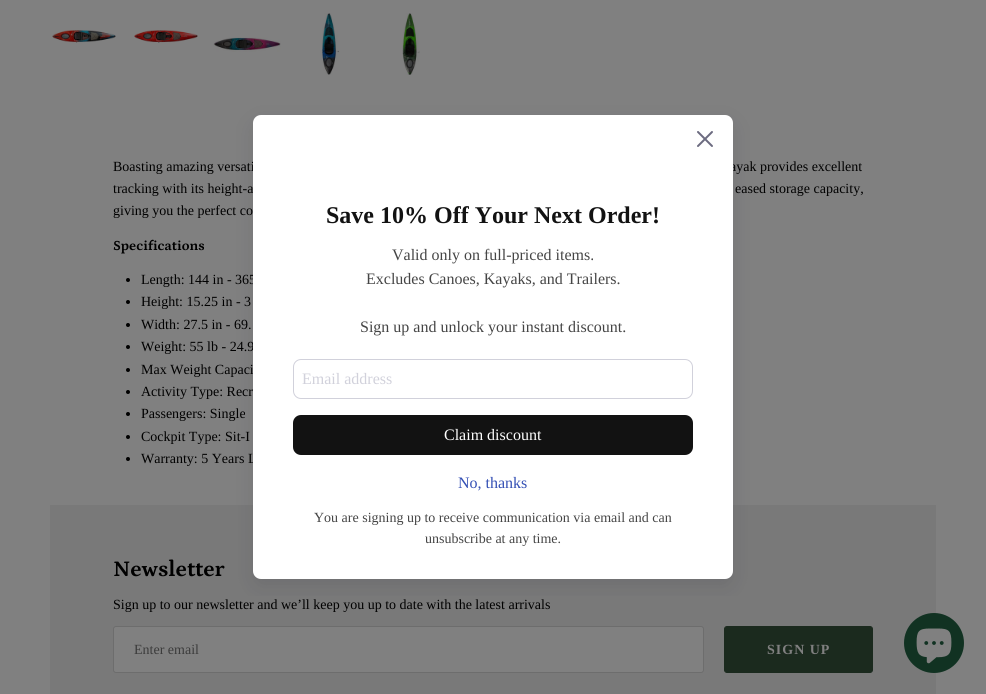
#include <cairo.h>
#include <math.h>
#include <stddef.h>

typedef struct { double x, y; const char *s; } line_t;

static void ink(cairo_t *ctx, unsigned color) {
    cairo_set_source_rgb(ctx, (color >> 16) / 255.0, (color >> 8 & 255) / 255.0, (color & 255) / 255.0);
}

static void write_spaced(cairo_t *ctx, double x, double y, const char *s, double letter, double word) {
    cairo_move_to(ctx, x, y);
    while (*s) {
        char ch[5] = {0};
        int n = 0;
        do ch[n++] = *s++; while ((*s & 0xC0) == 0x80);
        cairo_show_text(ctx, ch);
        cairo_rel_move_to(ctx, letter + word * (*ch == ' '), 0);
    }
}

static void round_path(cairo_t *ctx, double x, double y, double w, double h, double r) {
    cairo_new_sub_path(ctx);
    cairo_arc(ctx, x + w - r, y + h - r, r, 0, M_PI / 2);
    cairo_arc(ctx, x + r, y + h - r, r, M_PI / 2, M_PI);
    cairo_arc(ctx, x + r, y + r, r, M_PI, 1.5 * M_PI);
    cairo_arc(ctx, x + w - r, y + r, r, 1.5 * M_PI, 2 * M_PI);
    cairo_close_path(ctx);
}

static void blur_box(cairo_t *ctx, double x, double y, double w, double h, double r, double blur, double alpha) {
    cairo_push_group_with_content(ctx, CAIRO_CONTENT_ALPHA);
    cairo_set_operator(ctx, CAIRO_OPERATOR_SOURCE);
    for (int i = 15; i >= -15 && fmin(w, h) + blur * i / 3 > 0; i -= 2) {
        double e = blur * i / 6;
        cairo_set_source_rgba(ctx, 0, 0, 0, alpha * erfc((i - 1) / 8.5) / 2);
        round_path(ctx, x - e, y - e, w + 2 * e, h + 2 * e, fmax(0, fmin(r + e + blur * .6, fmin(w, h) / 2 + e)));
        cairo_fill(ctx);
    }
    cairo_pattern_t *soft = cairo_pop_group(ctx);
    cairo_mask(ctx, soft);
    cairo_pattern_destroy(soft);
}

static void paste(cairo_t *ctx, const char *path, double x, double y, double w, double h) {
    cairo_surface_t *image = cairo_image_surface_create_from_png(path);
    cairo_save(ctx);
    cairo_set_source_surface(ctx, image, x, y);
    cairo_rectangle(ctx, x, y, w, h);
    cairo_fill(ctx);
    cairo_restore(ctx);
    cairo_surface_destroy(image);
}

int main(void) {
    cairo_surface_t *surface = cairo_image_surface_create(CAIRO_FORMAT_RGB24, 986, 694);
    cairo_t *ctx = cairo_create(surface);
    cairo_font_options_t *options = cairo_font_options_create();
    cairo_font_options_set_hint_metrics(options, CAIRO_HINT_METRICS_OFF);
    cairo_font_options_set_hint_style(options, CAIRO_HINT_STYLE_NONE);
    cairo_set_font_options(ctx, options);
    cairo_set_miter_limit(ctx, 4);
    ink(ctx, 0x808080);
    cairo_paint(ctx);
    paste(ctx, "media/1.png", 52, 30, 64, 13);
    paste(ctx, "media/2.png", 134, 30, 64, 13);
    paste(ctx, "media/3.png", 213, 37, 68, 15);
    paste(ctx, "media/4.png", 322, 13, 17, 62);
    paste(ctx, "media/5.png", 402, 13, 18, 62);
    cairo_select_font_face(ctx, "Liberation Serif", CAIRO_FONT_SLANT_NORMAL, CAIRO_FONT_WEIGHT_NORMAL);
    cairo_set_font_size(ctx, 14);
    ink(ctx, 0x000000);
    {
        static const line_t items[] = {
            {113, 171, "Boasting amazing versati"},
            {730, 171, "ayak provides excellent"},
            {113, 193, "tracking with its height-a"},
            {735, 193, "eased storage capacity,"},
            {113, 215, "giving you the perfect co"},
        };
        for (size_t i = 0; i < sizeof items / sizeof *items; i++) {
            cairo_move_to(ctx, items[i].x, items[i].y);
            cairo_show_text(ctx, items[i].s);
        }
    }
    cairo_select_font_face(ctx, "Petrona", CAIRO_FONT_SLANT_NORMAL, CAIRO_FONT_WEIGHT_BOLD);
    cairo_move_to(ctx, 113, 250);
    cairo_show_text(ctx, "Specifications");
    cairo_new_path(ctx);
    cairo_arc(ctx, 128, 280, 2, 0, 2 * M_PI);
    cairo_fill(ctx);
    cairo_select_font_face(ctx, "Liberation Serif", CAIRO_FONT_SLANT_NORMAL, CAIRO_FONT_WEIGHT_NORMAL);
    cairo_move_to(ctx, 141, 284);
    cairo_show_text(ctx, "Length: 144 in - 365");
    cairo_new_path(ctx);
    cairo_arc(ctx, 128, 302, 2, 0, 2 * M_PI);
    cairo_fill(ctx);
    cairo_move_to(ctx, 141, 306);
    cairo_show_text(ctx, "Height: 15.25 in - 3");
    cairo_new_path(ctx);
    cairo_arc(ctx, 128, 325, 2, 0, 2 * M_PI);
    cairo_fill(ctx);
    cairo_move_to(ctx, 141, 329);
    cairo_show_text(ctx, "Width: 27.5 in - 69.");
    cairo_new_path(ctx);
    cairo_arc(ctx, 128, 347, 2, 0, 2 * M_PI);
    cairo_fill(ctx);
    cairo_move_to(ctx, 141, 351);
    cairo_show_text(ctx, "Weight: 55 lb - 24.9");
    cairo_new_path(ctx);
    cairo_arc(ctx, 128, 370, 2, 0, 2 * M_PI);
    cairo_fill(ctx);
    cairo_move_to(ctx, 141, 374);
    cairo_show_text(ctx, "Max Weight Capaci");
    cairo_new_path(ctx);
    cairo_arc(ctx, 128, 392, 2, 0, 2 * M_PI);
    cairo_fill(ctx);
    cairo_move_to(ctx, 141, 396);
    cairo_show_text(ctx, "Activity Type: Recr");
    cairo_new_path(ctx);
    cairo_arc(ctx, 128, 414, 2, 0, 2 * M_PI);
    cairo_fill(ctx);
    cairo_move_to(ctx, 141, 418);
    cairo_show_text(ctx, "Passengers: Single");
    cairo_new_path(ctx);
    cairo_arc(ctx, 128, 437, 2, 0, 2 * M_PI);
    cairo_fill(ctx);
    cairo_move_to(ctx, 141, 441);
    cairo_show_text(ctx, "Cockpit Type: Sit-I");
    cairo_new_path(ctx);
    cairo_arc(ctx, 128, 459, 2, 0, 2 * M_PI);
    cairo_fill(ctx);
    cairo_move_to(ctx, 141, 463);
    cairo_show_text(ctx, "Warranty: 5 Years L");
    ink(ctx, 0x797979);
    cairo_rectangle(ctx, 50, 505, 886, 189);
    cairo_fill(ctx);
    cairo_select_font_face(ctx, "Petrona", CAIRO_FONT_SLANT_NORMAL, CAIRO_FONT_WEIGHT_BOLD);
    cairo_set_font_size(ctx, 22.5);
    ink(ctx, 0x000000);
    cairo_move_to(ctx, 113, 576);
    cairo_show_text(ctx, "Newsletter");
    cairo_select_font_face(ctx, "Liberation Serif", CAIRO_FONT_SLANT_NORMAL, CAIRO_FONT_WEIGHT_NORMAL);
    cairo_set_font_size(ctx, 14);
    cairo_move_to(ctx, 113, 609);
    cairo_show_text(ctx, "Sign up to our newsletter and we’ll keep you up to date with the latest arrivals");
    ink(ctx, 0x808080);
    round_path(ctx, 113, 626, 591, 47, 3);
    cairo_fill(ctx);
    round_path(ctx, 113.5, 626.5, 590, 46, 2.5);
    cairo_set_source_rgba(ctx, 0, 0, 0, 0.15);
    cairo_set_line_width(ctx, 1);
    cairo_stroke(ctx);
    ink(ctx, 0x3B3B3B);
    cairo_move_to(ctx, 134, 654);
    cairo_show_text(ctx, "Enter email");
    ink(ctx, 0x1B2A1E);
    round_path(ctx, 724.5, 626.5, 148, 46, 2.5);
    cairo_fill_preserve(ctx);
    cairo_stroke(ctx);
    cairo_select_font_face(ctx, "Liberation Serif", CAIRO_FONT_SLANT_NORMAL, CAIRO_FONT_WEIGHT_BOLD);
    ink(ctx, 0x808080);
    write_spaced(ctx, 767, 654, "SIGN UP", 1, 0);
    cairo_save(ctx);
    cairo_rectangle(ctx, 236, 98, 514, 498);
    cairo_clip(ctx);
    ink(ctx, 0x121127);
    blur_box(ctx, 253, 123, 480, 464, 8, 10, 0.1);
    cairo_restore(ctx);
    ink(ctx, 0xFFFFFF);
    round_path(ctx, 253, 115, 480, 464, 8);
    cairo_fill(ctx);
    paste(ctx, "media/6.png", 697, 131, 16, 16);
    cairo_set_font_size(ctx, 24);
    ink(ctx, 0x121212);
    cairo_move_to(ctx, 326, 223);
    cairo_show_text(ctx, "Save 10% Off Your Next Order!");
    cairo_select_font_face(ctx, "Liberation Serif", CAIRO_FONT_SLANT_NORMAL, CAIRO_FONT_WEIGHT_NORMAL);
    cairo_set_font_size(ctx, 16);
    ink(ctx, 0x454545);
    {
        static const line_t items[] = {
            {392, 260, "Valid only on full-priced items."},
            {366, 284, "Excludes Canoes, Kayaks, and Trailers."},
            {360, 332, "Sign up and unlock your instant discount."},
        };
        for (size_t i = 0; i < sizeof items / sizeof *items; i++) {
            cairo_move_to(ctx, items[i].x, items[i].y);
            cairo_show_text(ctx, items[i].s);
        }
    }
    round_path(ctx, 293.5, 359.5, 399, 39, 7.5);
    ink(ctx, 0xD1D1DB);
    cairo_stroke(ctx);
    cairo_move_to(ctx, 302, 384);
    cairo_show_text(ctx, "Email address");
    ink(ctx, 0x121212);
    round_path(ctx, 293, 415, 400, 40, 8);
    cairo_fill(ctx);
    ink(ctx, 0xFFFFFF);
    cairo_move_to(ctx, 444, 440);
    cairo_show_text(ctx, "Claim discount");
    ink(ctx, 0x334FB4);
    cairo_move_to(ctx, 458, 488);
    cairo_show_text(ctx, "No, thanks");
    cairo_set_font_size(ctx, 14);
    ink(ctx, 0x454545);
    cairo_move_to(ctx, 314, 522);
    cairo_show_text(ctx, "You are signing up to receive communication via email and can");
    cairo_move_to(ctx, 425, 543);
    cairo_show_text(ctx, "unsubscribe at any time.");
    ink(ctx, 0x113222);
    cairo_new_path(ctx);
    cairo_arc(ctx, 934, 643, 30, 0, 2 * M_PI);
    cairo_fill(ctx);
    paste(ctx, "media/7.png", 916, 628, 36, 36);
    cairo_surface_write_to_png(surface, "image.png");
    cairo_font_options_destroy(options);
    cairo_destroy(ctx);
    cairo_surface_destroy(surface);
    return 0;
}
